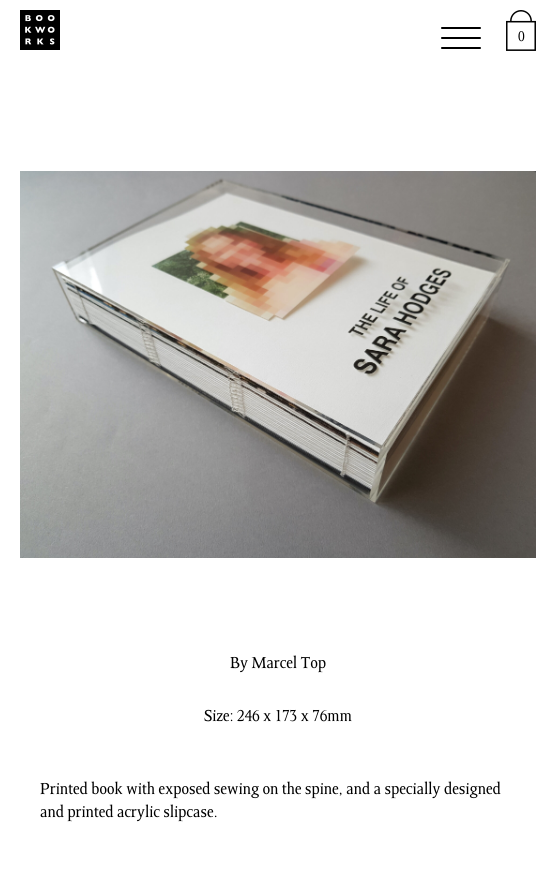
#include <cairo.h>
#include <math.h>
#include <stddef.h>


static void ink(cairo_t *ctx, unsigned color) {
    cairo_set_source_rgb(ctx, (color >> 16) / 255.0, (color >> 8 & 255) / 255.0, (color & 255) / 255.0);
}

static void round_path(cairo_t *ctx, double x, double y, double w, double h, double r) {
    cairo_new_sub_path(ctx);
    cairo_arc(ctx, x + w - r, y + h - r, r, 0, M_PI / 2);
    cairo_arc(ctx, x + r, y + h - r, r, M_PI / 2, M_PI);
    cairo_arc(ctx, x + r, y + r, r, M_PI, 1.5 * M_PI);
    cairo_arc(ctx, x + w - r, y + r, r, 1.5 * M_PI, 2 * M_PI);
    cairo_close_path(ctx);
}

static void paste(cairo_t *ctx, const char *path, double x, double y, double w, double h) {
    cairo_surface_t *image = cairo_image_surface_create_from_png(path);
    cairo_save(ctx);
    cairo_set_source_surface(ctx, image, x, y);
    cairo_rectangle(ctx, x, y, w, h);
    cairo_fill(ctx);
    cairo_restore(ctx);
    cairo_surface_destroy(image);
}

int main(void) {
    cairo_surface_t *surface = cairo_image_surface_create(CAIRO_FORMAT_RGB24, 556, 895);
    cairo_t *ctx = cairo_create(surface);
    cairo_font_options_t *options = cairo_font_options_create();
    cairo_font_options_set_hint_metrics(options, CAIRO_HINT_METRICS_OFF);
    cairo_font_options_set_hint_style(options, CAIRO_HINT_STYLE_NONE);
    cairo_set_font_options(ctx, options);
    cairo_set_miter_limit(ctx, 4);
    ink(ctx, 0xFFFFFF);
    cairo_paint(ctx);
    paste(ctx, "media/1.png", 20, 10, 40, 40);
    ink(ctx, 0x000000);
    round_path(ctx, 441, 47, 40, 2, 1);
    cairo_fill(ctx);
    round_path(ctx, 441, 27, 40, 2, 1);
    cairo_fill(ctx);
    round_path(ctx, 441, 37, 40, 2, 1);
    cairo_fill(ctx);
    paste(ctx, "media/2.png", 506, 10, 30, 41);
    paste(ctx, "media/3.png", 518, 31, 7, 11);
    paste(ctx, "media/4.png", 20, 171, 516, 387);
    paste(ctx, "media/5.png", 230, 655, 96, 18);
    paste(ctx, "media/6.png", 204, 709, 148, 13);
    paste(ctx, "media/7.png", 40, 781, 461, 18);
    paste(ctx, "media/8.png", 40, 804, 177, 18);
    cairo_surface_write_to_png(surface, "image.png");
    cairo_font_options_destroy(options);
    cairo_destroy(ctx);
    cairo_surface_destroy(surface);
    return 0;
}
